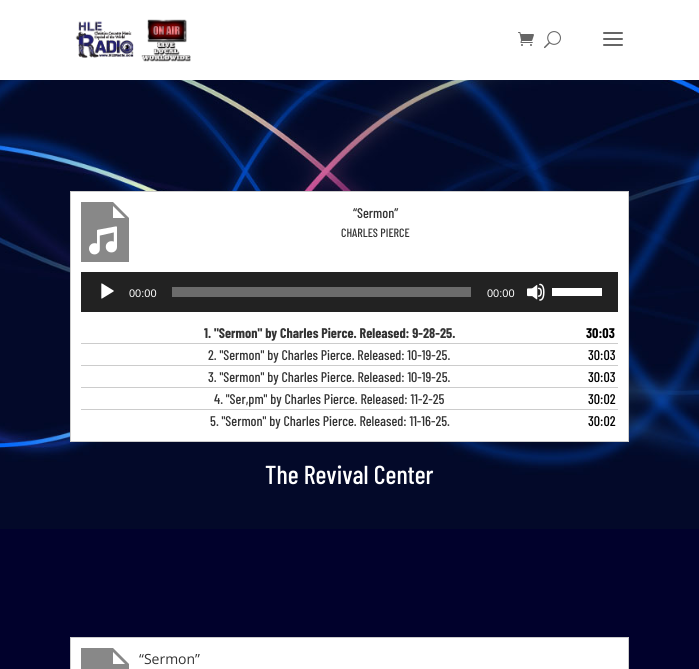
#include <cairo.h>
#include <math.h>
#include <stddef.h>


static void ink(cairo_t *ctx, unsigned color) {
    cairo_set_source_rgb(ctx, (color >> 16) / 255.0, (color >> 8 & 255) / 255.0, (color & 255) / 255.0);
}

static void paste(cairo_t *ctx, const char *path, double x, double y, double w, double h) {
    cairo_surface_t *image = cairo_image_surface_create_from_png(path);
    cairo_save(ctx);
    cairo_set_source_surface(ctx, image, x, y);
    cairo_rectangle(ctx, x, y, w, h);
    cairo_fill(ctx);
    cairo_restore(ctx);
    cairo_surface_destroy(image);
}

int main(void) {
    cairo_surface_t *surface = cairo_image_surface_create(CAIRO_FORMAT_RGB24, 699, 669);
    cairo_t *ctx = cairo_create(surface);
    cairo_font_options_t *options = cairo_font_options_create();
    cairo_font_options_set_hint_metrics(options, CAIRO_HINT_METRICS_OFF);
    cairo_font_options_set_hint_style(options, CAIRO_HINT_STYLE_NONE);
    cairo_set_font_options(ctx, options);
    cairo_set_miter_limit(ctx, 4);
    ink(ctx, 0xFFFFFF);
    cairo_paint(ctx);
    paste(ctx, "media/1.png", 75, 19, 116, 43);
    paste(ctx, "media/2.png", 518, 32, 16, 14);
    paste(ctx, "media/3.png", 544, 31, 17, 18);
    paste(ctx, "media/4.png", 603, 32, 20, 14);
    paste(ctx, "media/5.png", 0, 80, 699, 449);
    ink(ctx, 0xFFFFFF);
    cairo_rectangle(ctx, 70.5, 191.5, 558, 250);
    cairo_fill_preserve(ctx);
    ink(ctx, 0xCCCCCC);
    cairo_set_line_width(ctx, 1);
    cairo_stroke(ctx);
    paste(ctx, "media/6.png", 81, 202, 48, 60);
    cairo_select_font_face(ctx, "Barlow Condensed Medium", CAIRO_FONT_SLANT_NORMAL, CAIRO_FONT_WEIGHT_NORMAL);
    cairo_set_font_size(ctx, 14);
    ink(ctx, 0x333333);
    cairo_move_to(ctx, 353, 218);
    cairo_show_text(ctx, "“Sermon”");
    cairo_set_font_size(ctx, 12);
    cairo_move_to(ctx, 341, 237);
    cairo_show_text(ctx, "CHARLES PIERCE");
    ink(ctx, 0x222222);
    cairo_rectangle(ctx, 81, 272, 537, 40);
    cairo_fill(ctx);
    paste(ctx, "media/7.png", 101, 283, 13, 16);
    cairo_select_font_face(ctx, "Liberation Sans", CAIRO_FONT_SLANT_NORMAL, CAIRO_FONT_WEIGHT_NORMAL);
    cairo_set_font_size(ctx, 11);
    ink(ctx, 0xFFFFFF);
    cairo_move_to(ctx, 129, 297);
    cairo_show_text(ctx, "00:00");
    ink(ctx, 0x6B6B6B);
    cairo_rectangle(ctx, 172, 287, 299, 10);
    cairo_fill(ctx);
    ink(ctx, 0xFFFFFF);
    cairo_move_to(ctx, 487, 297);
    cairo_show_text(ctx, "00:00");
    paste(ctx, "media/8.png", 527, 283, 18, 18);
    cairo_rectangle(ctx, 552, 288, 50, 8);
    cairo_fill(ctx);
    ink(ctx, 0xCCCCCC);
    cairo_rectangle(ctx, 81, 343, 537, 1);
    cairo_fill(ctx);
    cairo_select_font_face(ctx, "Barlow Condensed", CAIRO_FONT_SLANT_NORMAL, CAIRO_FONT_WEIGHT_BOLD);
    cairo_set_font_size(ctx, 14);
    ink(ctx, 0x333333);
    cairo_move_to(ctx, 204, 338);
    cairo_show_text(ctx, "1. \"Sermon\" by Charles Pierce. Released: 9-28-25.");
    ink(ctx, 0x000000);
    cairo_move_to(ctx, 586, 338);
    cairo_show_text(ctx, "30:03");
    ink(ctx, 0xCCCCCC);
    cairo_rectangle(ctx, 81, 365, 537, 1);
    cairo_fill(ctx);
    cairo_select_font_face(ctx, "Barlow Condensed Medium", CAIRO_FONT_SLANT_NORMAL, CAIRO_FONT_WEIGHT_NORMAL);
    ink(ctx, 0x333333);
    cairo_move_to(ctx, 208, 360);
    cairo_show_text(ctx, "2. \"Sermon\" by Charles Pierce. Released: 10-19-25.");
    ink(ctx, 0x000000);
    cairo_move_to(ctx, 588, 360);
    cairo_show_text(ctx, "30:03");
    ink(ctx, 0xCCCCCC);
    cairo_rectangle(ctx, 81, 387, 537, 1);
    cairo_fill(ctx);
    ink(ctx, 0x333333);
    cairo_move_to(ctx, 208, 382);
    cairo_show_text(ctx, "3. \"Sermon\" by Charles Pierce. Released: 10-19-25.");
    ink(ctx, 0x000000);
    cairo_move_to(ctx, 588, 382);
    cairo_show_text(ctx, "30:03");
    ink(ctx, 0xCCCCCC);
    cairo_rectangle(ctx, 81, 409, 537, 1);
    cairo_fill(ctx);
    ink(ctx, 0x333333);
    cairo_move_to(ctx, 214, 404);
    cairo_show_text(ctx, "4. \"Ser,pm\" by Charles Pierce. Released: 11-2-25");
    ink(ctx, 0x000000);
    cairo_move_to(ctx, 588, 404);
    cairo_show_text(ctx, "30:02");
    ink(ctx, 0x333333);
    cairo_move_to(ctx, 210, 426);
    cairo_show_text(ctx, "5. \"Sermon\" by Charles Pierce. Released: 11-16-25.");
    ink(ctx, 0x000000);
    cairo_move_to(ctx, 588, 426);
    cairo_show_text(ctx, "30:02");
    cairo_set_font_size(ctx, 26);
    ink(ctx, 0xFFFFFF);
    cairo_move_to(ctx, 265, 484);
    cairo_show_text(ctx, "The Revival Center");
    ink(ctx, 0x01012C);
    cairo_rectangle(ctx, 0, 529, 699, 140);
    cairo_fill(ctx);
    ink(ctx, 0xFFFFFF);
    cairo_rectangle(ctx, 70.5, 637.5, 558, 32);
    cairo_fill_preserve(ctx);
    ink(ctx, 0xCCCCCC);
    cairo_stroke(ctx);
    paste(ctx, "media/9.png", 81, 648, 48, 21);
    cairo_select_font_face(ctx, "Open Sans", CAIRO_FONT_SLANT_NORMAL, CAIRO_FONT_WEIGHT_NORMAL);
    cairo_set_font_size(ctx, 14);
    ink(ctx, 0x333333);
    cairo_move_to(ctx, 139, 664);
    cairo_show_text(ctx, "“Sermon”");
    cairo_surface_write_to_png(surface, "image.png");
    cairo_font_options_destroy(options);
    cairo_destroy(ctx);
    cairo_surface_destroy(surface);
    return 0;
}
